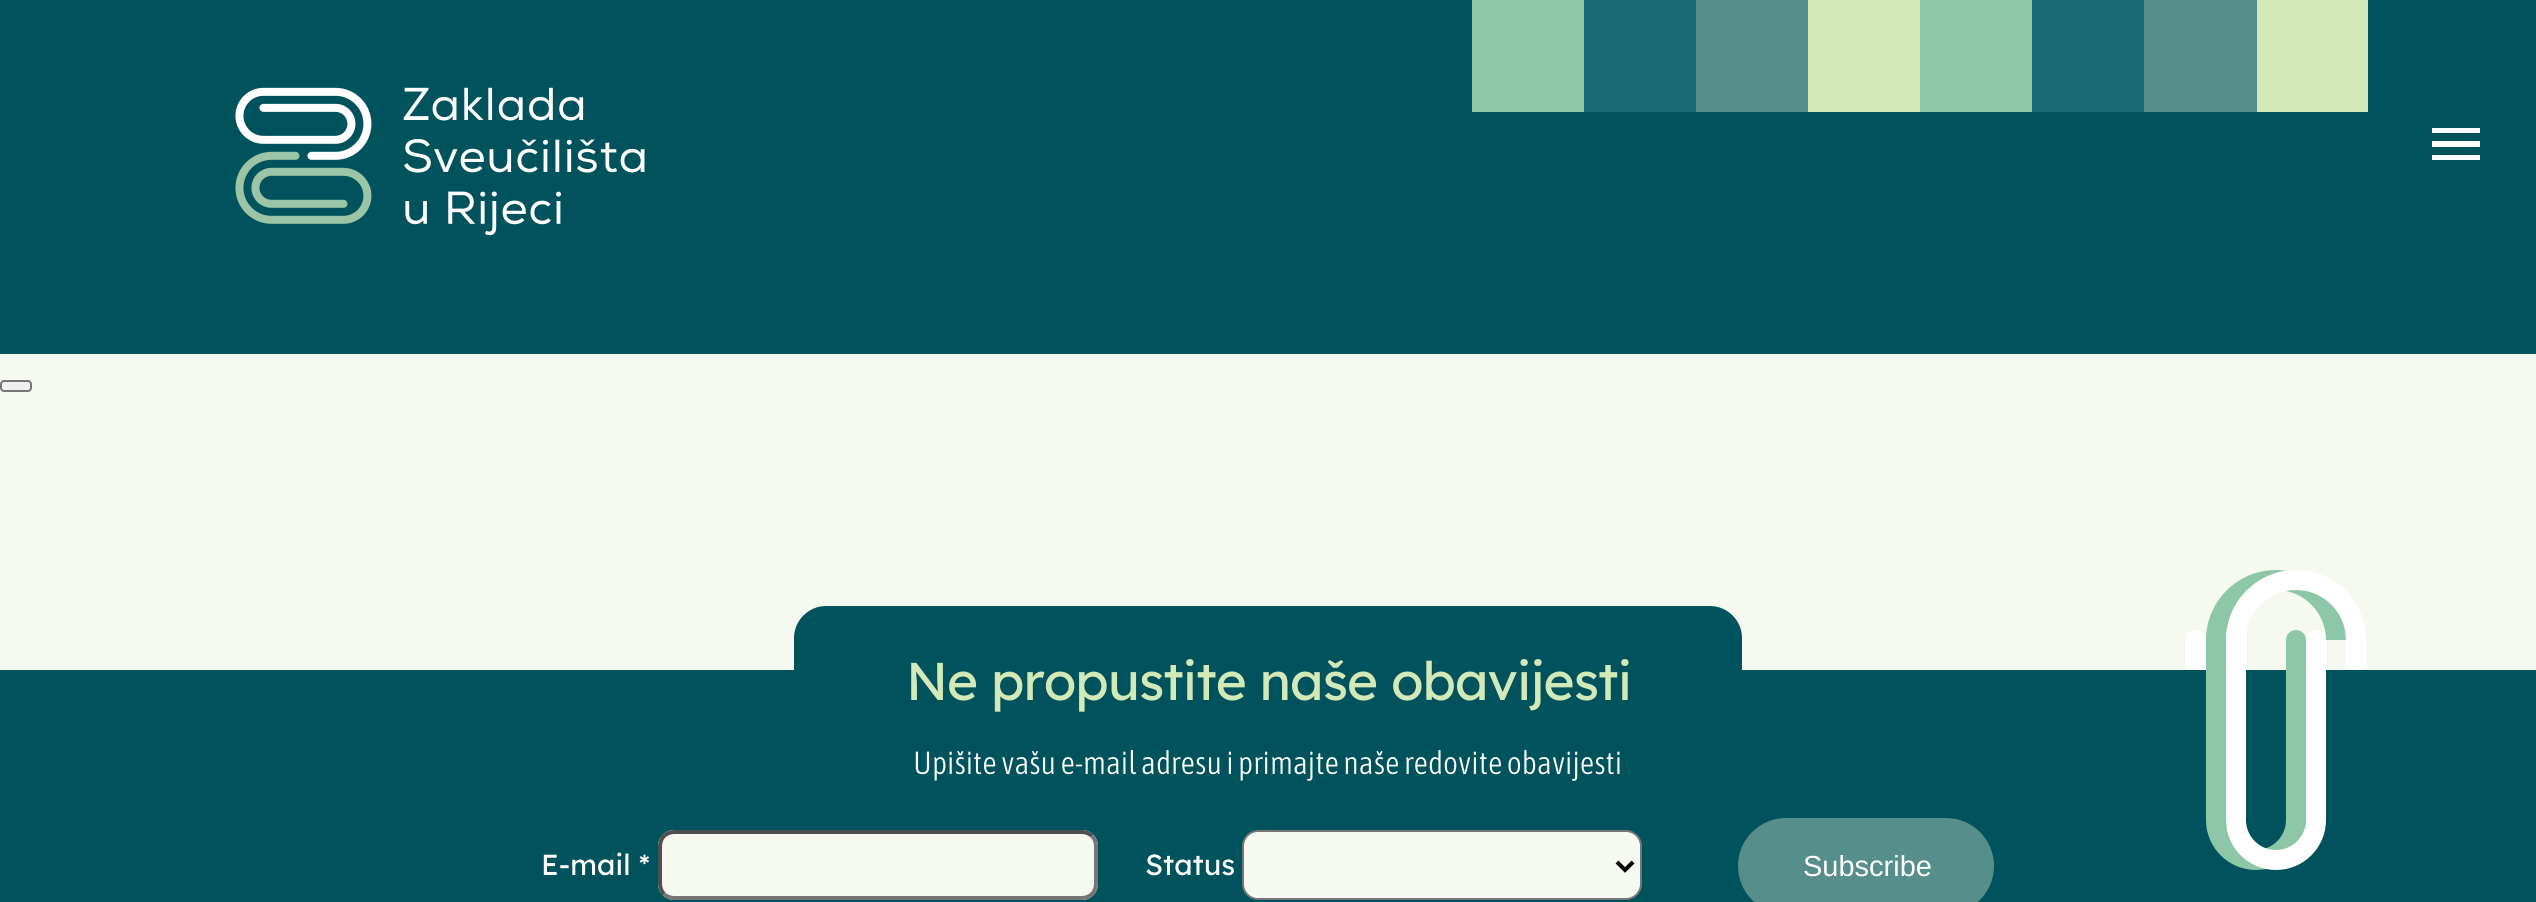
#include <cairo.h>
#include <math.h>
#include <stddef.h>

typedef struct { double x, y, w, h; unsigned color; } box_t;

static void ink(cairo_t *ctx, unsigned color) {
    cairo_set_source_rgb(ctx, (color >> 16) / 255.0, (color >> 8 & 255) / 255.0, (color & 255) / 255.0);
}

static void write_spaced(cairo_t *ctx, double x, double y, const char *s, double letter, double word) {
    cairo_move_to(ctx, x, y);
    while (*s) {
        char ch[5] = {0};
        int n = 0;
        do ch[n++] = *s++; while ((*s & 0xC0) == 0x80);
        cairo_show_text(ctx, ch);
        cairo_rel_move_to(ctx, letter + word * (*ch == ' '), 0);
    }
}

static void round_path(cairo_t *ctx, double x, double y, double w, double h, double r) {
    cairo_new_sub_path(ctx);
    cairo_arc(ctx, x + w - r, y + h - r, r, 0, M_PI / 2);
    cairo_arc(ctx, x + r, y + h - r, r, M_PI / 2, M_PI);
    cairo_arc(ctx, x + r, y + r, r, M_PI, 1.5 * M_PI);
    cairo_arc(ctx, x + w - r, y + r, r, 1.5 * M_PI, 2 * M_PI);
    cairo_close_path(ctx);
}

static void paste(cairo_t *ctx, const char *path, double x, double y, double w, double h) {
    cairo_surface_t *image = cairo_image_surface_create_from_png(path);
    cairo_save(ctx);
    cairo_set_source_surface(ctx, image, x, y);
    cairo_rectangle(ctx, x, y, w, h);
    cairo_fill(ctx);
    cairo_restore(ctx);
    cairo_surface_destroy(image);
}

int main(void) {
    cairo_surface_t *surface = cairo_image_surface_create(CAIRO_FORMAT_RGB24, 2536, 902);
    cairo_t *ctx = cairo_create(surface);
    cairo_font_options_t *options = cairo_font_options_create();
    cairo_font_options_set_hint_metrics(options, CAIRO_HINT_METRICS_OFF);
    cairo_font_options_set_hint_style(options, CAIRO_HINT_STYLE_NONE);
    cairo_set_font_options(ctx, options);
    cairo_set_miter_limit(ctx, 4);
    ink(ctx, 0xF5F9F0);
    cairo_paint(ctx);
    {
        static const box_t items[] = {
            {0, 0, 2536, 354, 0x00535C},
            {1472, 0, 112, 112, 0x8EC7A7},
            {1584, 0, 112, 112, 0x186B74},
            {1696, 0, 112, 112, 0x558E8A},
            {1808, 0, 112, 112, 0xD4E9B8},
            {1920, 0, 112, 112, 0x8EC7A7},
            {2032, 0, 112, 112, 0x186B74},
            {2144, 0, 113, 112, 0x558E8A},
            {2257, 0, 111, 112, 0xD4E9B8},
        };
        for (size_t i = 0; i < sizeof items / sizeof *items; i++) {
            ink(ctx, items[i].color);
            cairo_rectangle(ctx, items[i].x, items[i].y, items[i].w, items[i].h);
            cairo_fill(ctx);
        }
    }
    paste(ctx, "media/1.png", 235, 87, 410, 149);
    ink(ctx, 0xFFFFFF);
    cairo_new_path(ctx);
    cairo_move_to(ctx, 2432, 128);
    cairo_line_to(ctx, 2480, 128);
    cairo_line_to(ctx, 2480, 133);
    cairo_line_to(ctx, 2432, 133);
    cairo_close_path(ctx);
    cairo_move_to(ctx, 2432, 141);
    cairo_line_to(ctx, 2480, 141);
    cairo_line_to(ctx, 2480, 147);
    cairo_line_to(ctx, 2432, 147);
    cairo_close_path(ctx);
    cairo_move_to(ctx, 2432, 155);
    cairo_line_to(ctx, 2480, 155);
    cairo_line_to(ctx, 2480, 160);
    cairo_line_to(ctx, 2432, 160);
    cairo_close_path(ctx);
    cairo_fill(ctx);
    ink(ctx, 0xEFEFEF);
    round_path(ctx, 1, 381, 30, 10, 3);
    cairo_fill_preserve(ctx);
    ink(ctx, 0x767676);
    cairo_stroke(ctx);
    ink(ctx, 0x00535C);
    cairo_rectangle(ctx, 0, 670, 2536, 232);
    cairo_fill(ctx);
    cairo_new_path(ctx);
    cairo_move_to(ctx, 826, 606);
    cairo_line_to(ctx, 1710, 606);
    cairo_curve_to(ctx, 1727.5, 606, 1742, 620.5, 1742, 638);
    cairo_line_to(ctx, 1742, 710);
    cairo_line_to(ctx, 794, 710);
    cairo_line_to(ctx, 794, 638);
    cairo_curve_to(ctx, 794, 620.5, 808.5, 606, 826, 606);
    cairo_close_path(ctx);
    cairo_fill(ctx);
    cairo_select_font_face(ctx, "Lexend Deca", CAIRO_FONT_SLANT_NORMAL, CAIRO_FONT_WEIGHT_NORMAL);
    cairo_set_font_size(ctx, 53.1);
    ink(ctx, 0xD4E9B8);
    write_spaced(ctx, 906, 700, "Ne propustite naše obavijesti", -1.05, 0);
    paste(ctx, "media/2.png", 2186, 570, 180, 300);
    cairo_select_font_face(ctx, "Asap Condensed Light", CAIRO_FONT_SLANT_NORMAL, CAIRO_FONT_WEIGHT_NORMAL);
    cairo_set_font_size(ctx, 32);
    ink(ctx, 0xFFFFFF);
    cairo_move_to(ctx, 913, 774);
    cairo_show_text(ctx, "Upišite vašu e-mail adresu i primajte naše redovite obavijesti");
    cairo_select_font_face(ctx, "Lexend Deca", CAIRO_FONT_SLANT_NORMAL, CAIRO_FONT_WEIGHT_NORMAL);
    cairo_set_font_size(ctx, 29);
    cairo_move_to(ctx, 541, 875);
    cairo_show_text(ctx, "E-mail *");
    ink(ctx, 0xF5F9F0);
    round_path(ctx, 658, 830, 440, 70, 16);
    cairo_fill(ctx);
    cairo_new_path(ctx);
    cairo_move_to(ctx, 1092, 836);
    cairo_curve_to(ctx, 1094.5, 838.5, 1096, 842.5, 1096, 846);
    cairo_line_to(ctx, 1096, 884);
    cairo_curve_to(ctx, 1096, 887.5, 1094.5, 891.5, 1092, 894);
    cairo_curve_to(ctx, 1089.5, 896.5, 1085.5, 898, 1082, 898);
    cairo_line_to(ctx, 674, 898);
    cairo_curve_to(ctx, 670.5, 898, 666.5, 896.5, 664, 894);
    ink(ctx, 0x767676);
    cairo_set_line_width(ctx, 4);
    cairo_stroke(ctx);
    cairo_new_path(ctx);
    cairo_move_to(ctx, 664, 894);
    cairo_curve_to(ctx, 661.5, 891.5, 660, 887.5, 660, 884);
    cairo_line_to(ctx, 660, 846);
    cairo_curve_to(ctx, 660, 842.5, 661.5, 838.5, 664, 836);
    cairo_curve_to(ctx, 666.5, 833.5, 670.5, 832, 674, 832);
    cairo_line_to(ctx, 1082, 832);
    cairo_curve_to(ctx, 1085.5, 832, 1089.5, 833.5, 1092, 836);
    ink(ctx, 0x4F4F4F);
    cairo_stroke(ctx);
    ink(ctx, 0xFFFFFF);
    cairo_move_to(ctx, 1145, 875);
    cairo_show_text(ctx, "Status");
    ink(ctx, 0xF5F9F0);
    round_path(ctx, 1243, 831, 398, 68, 15);
    cairo_fill_preserve(ctx);
    ink(ctx, 0x767676);
    cairo_set_line_width(ctx, 2);
    cairo_stroke(ctx);
    cairo_new_path(ctx);
    cairo_move_to(ctx, 1617, 862);
    cairo_line_to(ctx, 1625, 870);
    cairo_line_to(ctx, 1633, 862);
    ink(ctx, 0x000000);
    cairo_set_line_width(ctx, 4);
    cairo_stroke(ctx);
    ink(ctx, 0x558E8A);
    round_path(ctx, 1738, 818, 256, 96, 48);
    cairo_fill(ctx);
    cairo_select_font_face(ctx, "Liberation Sans", CAIRO_FONT_SLANT_NORMAL, CAIRO_FONT_WEIGHT_NORMAL);
    ink(ctx, 0xFFFFFF);
    cairo_move_to(ctx, 1803, 876);
    cairo_show_text(ctx, "Subscribe");
    cairo_surface_write_to_png(surface, "image.png");
    cairo_font_options_destroy(options);
    cairo_destroy(ctx);
    cairo_surface_destroy(surface);
    return 0;
}
